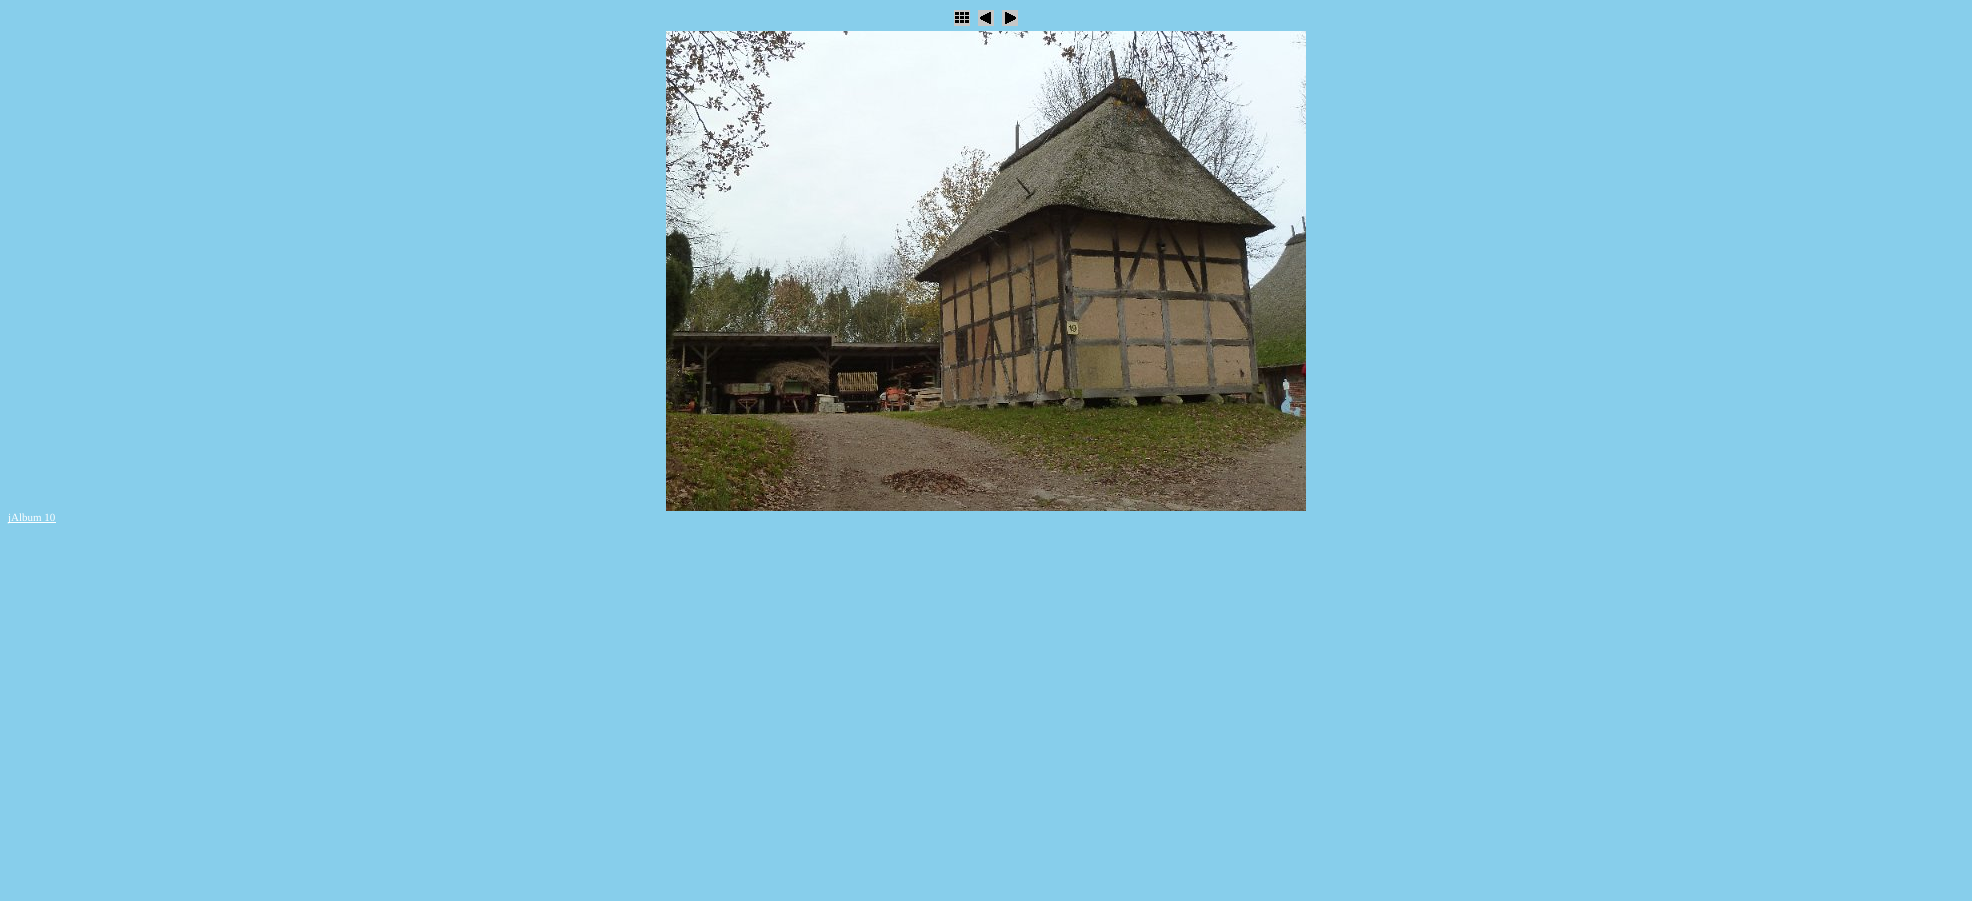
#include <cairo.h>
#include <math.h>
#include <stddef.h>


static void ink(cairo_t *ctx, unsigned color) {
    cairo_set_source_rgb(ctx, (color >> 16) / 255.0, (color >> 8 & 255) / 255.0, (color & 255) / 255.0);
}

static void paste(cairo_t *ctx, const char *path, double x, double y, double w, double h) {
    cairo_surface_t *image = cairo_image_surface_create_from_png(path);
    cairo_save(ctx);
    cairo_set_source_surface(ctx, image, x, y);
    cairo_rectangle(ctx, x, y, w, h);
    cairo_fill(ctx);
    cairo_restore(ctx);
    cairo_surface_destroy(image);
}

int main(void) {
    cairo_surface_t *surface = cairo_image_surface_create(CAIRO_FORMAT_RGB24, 1972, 901);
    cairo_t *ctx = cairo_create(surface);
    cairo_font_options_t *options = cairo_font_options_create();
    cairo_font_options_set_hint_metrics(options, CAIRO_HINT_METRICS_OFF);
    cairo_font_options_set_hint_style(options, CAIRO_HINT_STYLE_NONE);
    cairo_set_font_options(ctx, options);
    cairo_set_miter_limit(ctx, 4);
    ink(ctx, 0x87CEEB);
    cairo_paint(ctx);
    paste(ctx, "media/1.png", 954, 10, 16, 16);
    paste(ctx, "media/2.png", 978, 10, 16, 16);
    paste(ctx, "media/3.png", 1002, 10, 16, 16);
    paste(ctx, "media/4.png", 666, 31, 640, 480);
    ink(ctx, 0xFFFFFF);
    cairo_rectangle(ctx, 8, 522, 48, 1);
    cairo_fill(ctx);
    cairo_select_font_face(ctx, "Liberation Serif", CAIRO_FONT_SLANT_NORMAL, CAIRO_FONT_WEIGHT_NORMAL);
    cairo_set_font_size(ctx, 11);
    cairo_move_to(ctx, 8, 521);
    cairo_show_text(ctx, "jAlbum 10");
    cairo_surface_write_to_png(surface, "image.png");
    cairo_font_options_destroy(options);
    cairo_destroy(ctx);
    cairo_surface_destroy(surface);
    return 0;
}
